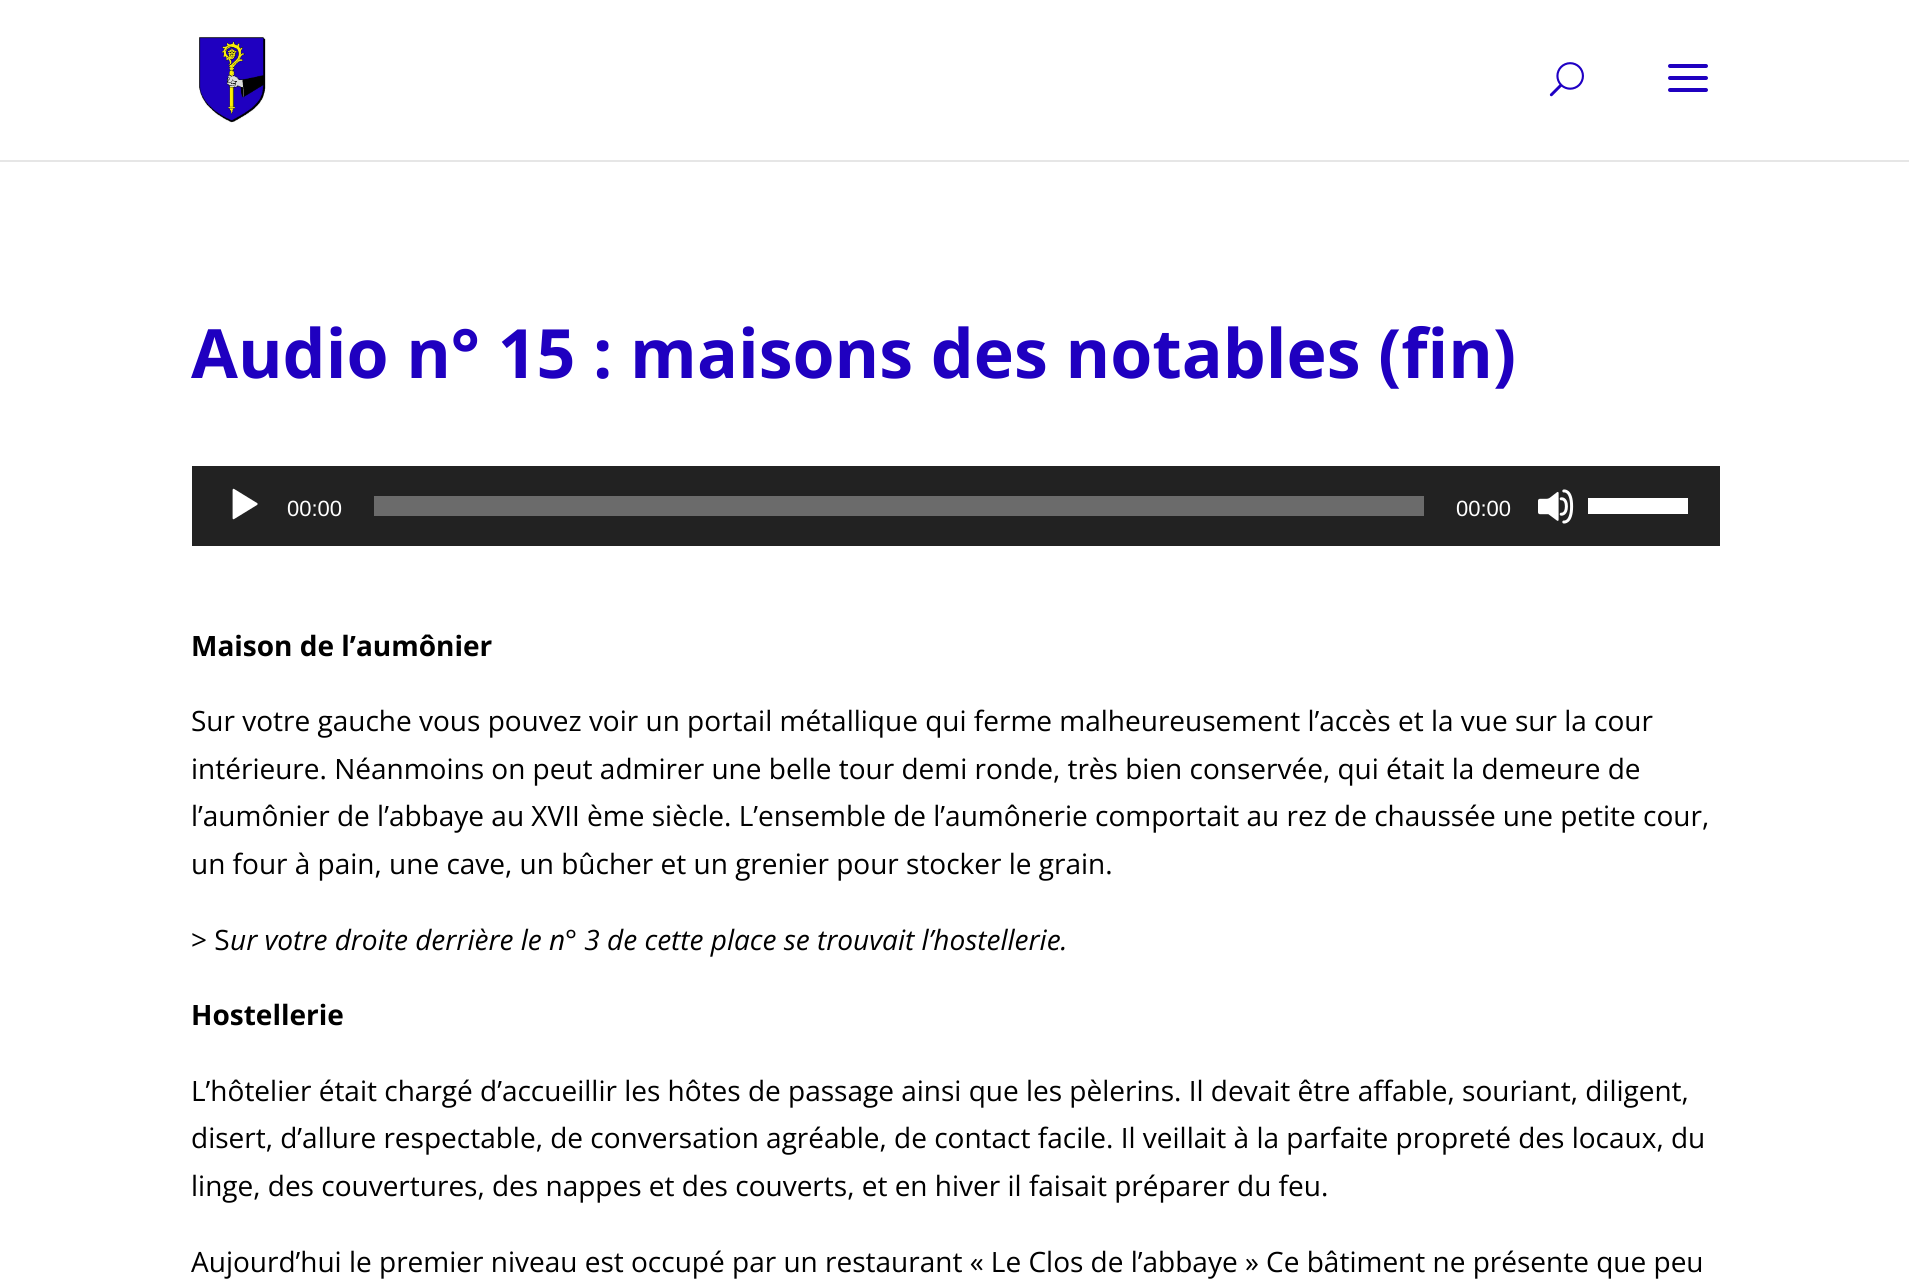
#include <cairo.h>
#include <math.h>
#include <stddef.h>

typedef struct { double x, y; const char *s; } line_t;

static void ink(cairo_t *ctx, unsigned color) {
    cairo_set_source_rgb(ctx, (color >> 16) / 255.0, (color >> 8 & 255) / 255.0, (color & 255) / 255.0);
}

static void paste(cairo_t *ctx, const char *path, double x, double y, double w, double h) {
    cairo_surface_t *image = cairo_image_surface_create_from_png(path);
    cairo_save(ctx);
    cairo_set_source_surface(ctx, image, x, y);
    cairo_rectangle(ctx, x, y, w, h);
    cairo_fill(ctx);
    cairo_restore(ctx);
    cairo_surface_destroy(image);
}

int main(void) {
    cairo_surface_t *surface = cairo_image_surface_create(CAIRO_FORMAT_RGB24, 1909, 1288);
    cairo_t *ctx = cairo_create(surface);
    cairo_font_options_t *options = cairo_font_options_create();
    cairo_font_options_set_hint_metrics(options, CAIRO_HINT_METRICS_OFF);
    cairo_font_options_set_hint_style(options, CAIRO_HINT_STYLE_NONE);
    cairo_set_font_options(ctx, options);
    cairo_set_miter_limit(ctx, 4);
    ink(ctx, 0xFFFFFF);
    cairo_paint(ctx);
    ink(ctx, 0xE6E6E6);
    cairo_rectangle(ctx, 0, 160, 1909, 2);
    cairo_fill(ctx);
    paste(ctx, "media/1.png", 199, 36, 67, 87);
    paste(ctx, "media/2.png", 1549, 62, 35, 35);
    paste(ctx, "media/3.png", 1668, 64, 40, 28);
    cairo_select_font_face(ctx, "Open Sans", CAIRO_FONT_SLANT_NORMAL, CAIRO_FONT_WEIGHT_BOLD);
    cairo_set_font_size(ctx, 68);
    ink(ctx, 0x1F00C0);
    cairo_move_to(ctx, 191, 378);
    cairo_show_text(ctx, "Audio n° 15 : maisons des notables (fin)");
    ink(ctx, 0x222222);
    cairo_rectangle(ctx, 192, 466, 1528, 80);
    cairo_fill(ctx);
    paste(ctx, "media/4.png", 232, 488, 26, 32);
    cairo_select_font_face(ctx, "Liberation Sans", CAIRO_FONT_SLANT_NORMAL, CAIRO_FONT_WEIGHT_NORMAL);
    cairo_set_font_size(ctx, 22);
    ink(ctx, 0xFFFFFF);
    cairo_move_to(ctx, 287, 516);
    cairo_show_text(ctx, "00:00");
    ink(ctx, 0x6B6B6B);
    cairo_rectangle(ctx, 374, 496, 1050, 20);
    cairo_fill(ctx);
    ink(ctx, 0xFFFFFF);
    cairo_move_to(ctx, 1456, 516);
    cairo_show_text(ctx, "00:00");
    paste(ctx, "media/5.png", 1538, 489, 36, 35);
    cairo_rectangle(ctx, 1588, 498, 100, 16);
    cairo_fill(ctx);
    cairo_select_font_face(ctx, "Open Sans", CAIRO_FONT_SLANT_NORMAL, CAIRO_FONT_WEIGHT_BOLD);
    cairo_set_font_size(ctx, 28);
    ink(ctx, 0x000000);
    cairo_move_to(ctx, 191, 656);
    cairo_show_text(ctx, "Maison de l’aumônier");
    cairo_select_font_face(ctx, "Open Sans", CAIRO_FONT_SLANT_NORMAL, CAIRO_FONT_WEIGHT_NORMAL);
    {
        static const line_t items[] = {
            {191, 731, "Sur votre gauche vous pouvez voir un portail métallique qui ferme malheureusement l’accès et la vue sur la cour"},
            {191, 779, "intérieure. Néanmoins on peut admirer une belle tour demi ronde, très bien conservée, qui était la demeure de"},
            {191, 826, "l’aumônier de l’abbaye au XVII ème siècle. L’ensemble de l’aumônerie comportait au rez de chaussée une petite cour,"},
            {191, 874, "un four à pain, une cave, un bûcher et un grenier pour stocker le grain."},
            {191, 950, "> S"},
        };
        for (size_t i = 0; i < sizeof items / sizeof *items; i++) {
            cairo_move_to(ctx, items[i].x, items[i].y);
            cairo_show_text(ctx, items[i].s);
        }
    }
    cairo_select_font_face(ctx, "Open Sans", CAIRO_FONT_SLANT_ITALIC, CAIRO_FONT_WEIGHT_NORMAL);
    cairo_move_to(ctx, 230, 950);
    cairo_show_text(ctx, "ur votre droite derrière le n° 3 de cette place se trouvait l’hostellerie.");
    cairo_select_font_face(ctx, "Open Sans", CAIRO_FONT_SLANT_NORMAL, CAIRO_FONT_WEIGHT_BOLD);
    cairo_move_to(ctx, 191, 1025);
    cairo_show_text(ctx, "Hostellerie");
    cairo_select_font_face(ctx, "Open Sans", CAIRO_FONT_SLANT_NORMAL, CAIRO_FONT_WEIGHT_NORMAL);
    {
        static const line_t items[] = {
            {191, 1101, "L’hôtelier était chargé d’accueillir les hôtes de passage ainsi que les pèlerins. Il devait être affable, souriant, diligent,"},
            {191, 1148, "disert, d’allure respectable, de conversation agréable, de contact facile. Il veillait à la parfaite propreté des locaux, du"},
            {191, 1196, "linge, des couvertures, des nappes et des couverts, et en hiver il faisait préparer du feu."},
            {191, 1272, "Aujourd’hui le premier niveau est occupé par un restaurant « Le Clos de l’abbaye » Ce bâtiment ne présente que peu"},
        };
        for (size_t i = 0; i < sizeof items / sizeof *items; i++) {
            cairo_move_to(ctx, items[i].x, items[i].y);
            cairo_show_text(ctx, items[i].s);
        }
    }
    cairo_surface_write_to_png(surface, "image.png");
    cairo_font_options_destroy(options);
    cairo_destroy(ctx);
    cairo_surface_destroy(surface);
    return 0;
}
